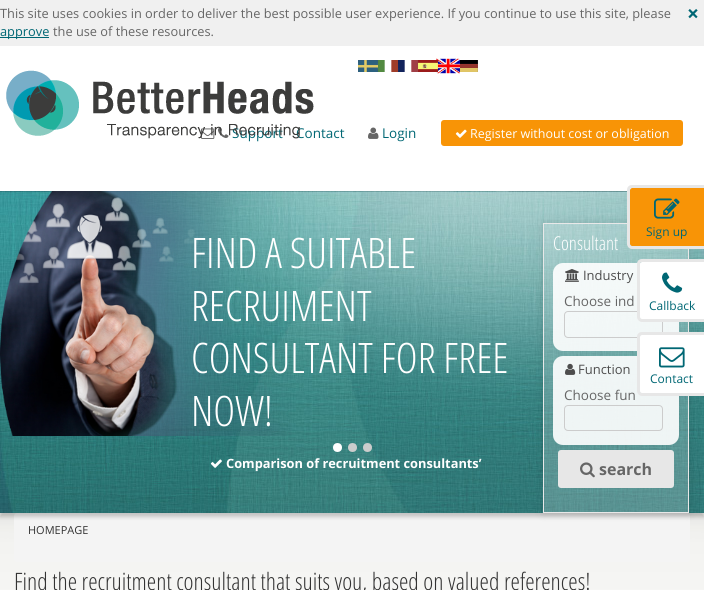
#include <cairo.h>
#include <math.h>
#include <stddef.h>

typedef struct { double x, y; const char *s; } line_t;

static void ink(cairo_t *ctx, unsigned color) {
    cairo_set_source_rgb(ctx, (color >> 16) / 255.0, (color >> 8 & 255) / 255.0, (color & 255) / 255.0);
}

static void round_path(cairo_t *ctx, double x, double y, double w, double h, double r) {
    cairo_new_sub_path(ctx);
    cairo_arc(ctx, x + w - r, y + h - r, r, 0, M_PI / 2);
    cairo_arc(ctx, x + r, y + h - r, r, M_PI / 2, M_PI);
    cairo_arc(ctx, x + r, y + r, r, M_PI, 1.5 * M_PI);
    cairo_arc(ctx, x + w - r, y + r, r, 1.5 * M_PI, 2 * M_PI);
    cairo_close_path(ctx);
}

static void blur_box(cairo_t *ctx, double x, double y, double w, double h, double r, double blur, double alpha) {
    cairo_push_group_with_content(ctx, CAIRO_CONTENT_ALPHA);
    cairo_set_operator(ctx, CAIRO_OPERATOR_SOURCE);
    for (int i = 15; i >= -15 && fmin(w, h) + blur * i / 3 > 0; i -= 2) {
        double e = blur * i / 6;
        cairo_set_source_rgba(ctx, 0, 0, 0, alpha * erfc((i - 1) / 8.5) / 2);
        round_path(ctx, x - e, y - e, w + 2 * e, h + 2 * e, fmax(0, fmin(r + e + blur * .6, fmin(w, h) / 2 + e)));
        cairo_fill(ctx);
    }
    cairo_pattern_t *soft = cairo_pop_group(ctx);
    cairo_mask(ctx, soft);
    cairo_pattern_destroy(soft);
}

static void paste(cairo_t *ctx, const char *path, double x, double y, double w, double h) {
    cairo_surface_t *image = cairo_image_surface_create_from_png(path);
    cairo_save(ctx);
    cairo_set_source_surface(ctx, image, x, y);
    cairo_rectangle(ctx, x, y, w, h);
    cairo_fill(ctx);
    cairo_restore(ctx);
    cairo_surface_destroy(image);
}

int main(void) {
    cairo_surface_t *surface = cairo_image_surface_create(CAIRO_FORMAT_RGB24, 704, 590);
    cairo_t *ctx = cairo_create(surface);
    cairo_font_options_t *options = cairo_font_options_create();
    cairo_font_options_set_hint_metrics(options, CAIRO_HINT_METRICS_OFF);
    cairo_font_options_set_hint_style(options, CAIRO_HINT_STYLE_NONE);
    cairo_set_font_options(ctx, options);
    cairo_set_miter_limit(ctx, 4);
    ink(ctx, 0xF0F0F0);
    cairo_paint(ctx);
    cairo_select_font_face(ctx, "Open Sans", CAIRO_FONT_SLANT_NORMAL, CAIRO_FONT_WEIGHT_NORMAL);
    cairo_set_font_size(ctx, 12.8);
    ink(ctx, 0x666666);
    cairo_move_to(ctx, 0, 18);
    cairo_show_text(ctx, "This site uses cookies in order to deliver the best possible user experience. If you continue to use this site, please");
    cairo_select_font_face(ctx, "Open Sans", CAIRO_FONT_SLANT_NORMAL, CAIRO_FONT_WEIGHT_BOLD);
    cairo_set_font_size(ctx, 21);
    ink(ctx, 0x006774);
    cairo_move_to(ctx, 687, 21);
    cairo_show_text(ctx, "×");
    cairo_rectangle(ctx, 0, 37, 49, 1);
    cairo_fill(ctx);
    cairo_select_font_face(ctx, "Open Sans", CAIRO_FONT_SLANT_NORMAL, CAIRO_FONT_WEIGHT_NORMAL);
    cairo_set_font_size(ctx, 12.8);
    cairo_move_to(ctx, 0, 36);
    cairo_show_text(ctx, "approve");
    ink(ctx, 0x666666);
    cairo_move_to(ctx, 53, 36);
    cairo_show_text(ctx, "the use of these resources.");
    ink(ctx, 0xFFFFFF);
    cairo_rectangle(ctx, 0, 46, 704, 145);
    cairo_fill(ctx);
    paste(ctx, "media/1.png", 358, 60, 20, 12);
    paste(ctx, "media/2.png", 378, 60, 20, 12);
    paste(ctx, "media/3.png", 398, 60, 20, 12);
    paste(ctx, "media/5.png", 436, 58, 24, 16);
    paste(ctx, "media/4.png", 418, 60, 20, 12);
    paste(ctx, "media/6.png", 460, 60, 18, 12);
    paste(ctx, "media/8.png", 201, 128, 14, 11);
    paste(ctx, "media/9.png", 218, 127, 11, 11);
    cairo_set_font_size(ctx, 13.5);
    ink(ctx, 0x006774);
    cairo_move_to(ctx, 232, 138);
    cairo_show_text(ctx, "Support");
    cairo_move_to(ctx, 296, 138);
    cairo_show_text(ctx, "Contact");
    paste(ctx, "media/7.png", 6, 70, 308, 69);
    paste(ctx, "media/10.png", 368, 127, 11, 12);
    cairo_move_to(ctx, 382, 138);
    cairo_show_text(ctx, "Login");
    ink(ctx, 0xF89406);
    round_path(ctx, 441, 120, 242, 26, 3);
    cairo_fill(ctx);
    paste(ctx, "media/11.png", 455, 129, 12, 9);
    cairo_set_font_size(ctx, 12.5);
    ink(ctx, 0xFFFFFF);
    cairo_move_to(ctx, 470, 138);
    cairo_show_text(ctx, "Register without cost or obligation");
    paste(ctx, "media/18.png", 0, 513, 704, 77);
    ink(ctx, 0xF4F4F4);
    round_path(ctx, 14, 513, 676, 49, 3);
    cairo_fill(ctx);
    ink(ctx, 0x000000);
    blur_box(ctx, 0, 195, 704, 322, 0, 2, 0.2);
    paste(ctx, "media/12.png", 0, 191, 704, 322);
    paste(ctx, "media/13.png", 0, 191, 292, 245);
    cairo_select_font_face(ctx, "Open Sans Light", CAIRO_FONT_SLANT_NORMAL, CAIRO_FONT_WEIGHT_NORMAL);
    cairo_set_font_size(ctx, 42);
    ink(ctx, 0xFFFFFF);
    {
        static const line_t items[] = {
            {191, 268, "FIND A SUITABLE"},
            {191, 321, "RECRUIMENT"},
            {191, 373, "CONSULTANT FOR FREE"},
            {191, 426, "NOW!"},
        };
        for (size_t i = 0; i < sizeof items / sizeof *items; i++) {
            cairo_move_to(ctx, items[i].x, items[i].y);
            cairo_show_text(ctx, items[i].s);
        }
    }
    paste(ctx, "media/14.png", 210, 459, 12, 9);
    cairo_select_font_face(ctx, "Open Sans", CAIRO_FONT_SLANT_NORMAL, CAIRO_FONT_WEIGHT_BOLD);
    cairo_set_font_size(ctx, 12.8);
    cairo_move_to(ctx, 226, 468);
    cairo_show_text(ctx, "Comparison of recruitment consultants’");
    cairo_new_path(ctx);
    cairo_arc(ctx, 337.5, 447.5, 4.5, 0, 2 * M_PI);
    cairo_fill(ctx);
    ink(ctx, 0xCCCCCC);
    cairo_arc(ctx, 352.5, 447.5, 4.5, 0, 2 * M_PI);
    cairo_fill(ctx);
    cairo_arc(ctx, 367.5, 447.5, 4.5, 0, 2 * M_PI);
    cairo_fill(ctx);
    cairo_save(ctx);
    cairo_set_fill_rule(ctx, CAIRO_FILL_RULE_EVEN_ODD);
    cairo_new_path(ctx);
    cairo_move_to(ctx, 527, 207);
    cairo_line_to(ctx, 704, 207);
    cairo_line_to(ctx, 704, 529);
    cairo_line_to(ctx, 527, 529);
    cairo_close_path(ctx);
    cairo_move_to(ctx, 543, 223);
    cairo_line_to(ctx, 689, 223);
    cairo_line_to(ctx, 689, 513);
    cairo_line_to(ctx, 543, 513);
    cairo_close_path(ctx);
    cairo_clip(ctx);
    ink(ctx, 0x000000);
    blur_box(ctx, 543, 223, 146, 290, 0, 5, 0.12);
    cairo_restore(ctx);
    cairo_set_source_rgba(ctx, 1, 1, 1, 0.2);
    cairo_rectangle(ctx, 543.5, 223.5, 145, 289);
    cairo_fill_preserve(ctx);
    ink(ctx, 0xE8E8E8);
    cairo_set_line_width(ctx, 1);
    cairo_stroke(ctx);
    cairo_select_font_face(ctx, "Open Sans Light", CAIRO_FONT_SLANT_NORMAL, CAIRO_FONT_WEIGHT_NORMAL);
    cairo_set_font_size(ctx, 19);
    ink(ctx, 0xFFFFFF);
    cairo_move_to(ctx, 553, 250);
    cairo_show_text(ctx, "Consultant");
    cairo_set_source_rgba(ctx, 1, 1, 1, 0.9);
    round_path(ctx, 553, 263, 126, 88, 10);
    cairo_fill(ctx);
    paste(ctx, "media/15.png", 565, 269, 14, 13);
    cairo_select_font_face(ctx, "Open Sans", CAIRO_FONT_SLANT_NORMAL, CAIRO_FONT_WEIGHT_NORMAL);
    cairo_set_font_size(ctx, 13);
    ink(ctx, 0x4D4D4D);
    cairo_move_to(ctx, 583, 280);
    cairo_show_text(ctx, "Industry");
    cairo_set_font_size(ctx, 13.5);
    ink(ctx, 0x666666);
    cairo_move_to(ctx, 564, 306);
    cairo_show_text(ctx, "Choose ind");
    round_path(ctx, 564.5, 311.5, 98, 26, 3.5);
    ink(ctx, 0xCCCCCC);
    cairo_stroke(ctx);
    cairo_set_source_rgba(ctx, 1, 1, 1, 0.9);
    round_path(ctx, 553, 356, 126, 89, 10);
    cairo_fill(ctx);
    paste(ctx, "media/16.png", 565, 363, 11, 12);
    cairo_set_font_size(ctx, 13);
    ink(ctx, 0x4D4D4D);
    cairo_move_to(ctx, 578, 374);
    cairo_show_text(ctx, "Function");
    cairo_set_font_size(ctx, 13.5);
    ink(ctx, 0x666666);
    cairo_move_to(ctx, 564, 400);
    cairo_show_text(ctx, "Choose fun");
    round_path(ctx, 564.5, 405.5, 98, 25, 3.5);
    ink(ctx, 0xCCCCCC);
    cairo_stroke(ctx);
    ink(ctx, 0xE7E7E7);
    round_path(ctx, 558, 450, 116, 38, 3);
    cairo_fill(ctx);
    paste(ctx, "media/17.png", 580, 462, 15, 16);
    cairo_select_font_face(ctx, "Open Sans", CAIRO_FONT_SLANT_NORMAL, CAIRO_FONT_WEIGHT_BOLD);
    cairo_set_font_size(ctx, 16);
    ink(ctx, 0x666666);
    cairo_move_to(ctx, 599, 475);
    cairo_show_text(ctx, "search");
    cairo_select_font_face(ctx, "Open Sans", CAIRO_FONT_SLANT_NORMAL, CAIRO_FONT_WEIGHT_NORMAL);
    cairo_set_font_size(ctx, 11);
    ink(ctx, 0x333333);
    cairo_move_to(ctx, 28, 534);
    cairo_show_text(ctx, "HOMEPAGE");
    cairo_select_font_face(ctx, "Open Sans Light", CAIRO_FONT_SLANT_NORMAL, CAIRO_FONT_WEIGHT_NORMAL);
    cairo_set_font_size(ctx, 24);
    cairo_move_to(ctx, 14, 590);
    cairo_show_text(ctx, "Find the recruitment consultant that suits you, based on valued references!");
    ink(ctx, 0xF89406);
    cairo_new_path(ctx);
    cairo_move_to(ctx, 632, 188);
    cairo_line_to(ctx, 704, 188);
    cairo_line_to(ctx, 704, 246);
    cairo_line_to(ctx, 632, 246);
    cairo_curve_to(ctx, 631, 246, 630, 245, 630, 244);
    cairo_line_to(ctx, 630, 190);
    cairo_curve_to(ctx, 630, 189, 631, 188, 632, 188);
    cairo_close_path(ctx);
    cairo_fill(ctx);
    ink(ctx, 0xE7E7E7);
    cairo_set_fill_rule(ctx, CAIRO_FILL_RULE_EVEN_ODD);
    cairo_new_path(ctx);
    cairo_move_to(ctx, 632, 185);
    cairo_line_to(ctx, 704, 185);
    cairo_line_to(ctx, 704, 249);
    cairo_line_to(ctx, 632, 249);
    cairo_curve_to(ctx, 629, 249, 627, 246, 627, 244);
    cairo_line_to(ctx, 627, 190);
    cairo_curve_to(ctx, 627, 187, 629, 185, 632, 185);
    cairo_close_path(ctx);
    cairo_move_to(ctx, 632, 188);
    cairo_line_to(ctx, 704, 188);
    cairo_line_to(ctx, 704, 246);
    cairo_line_to(ctx, 632, 246);
    cairo_curve_to(ctx, 631, 246, 630, 245, 630, 244);
    cairo_line_to(ctx, 630, 190);
    cairo_curve_to(ctx, 630, 189, 631, 188, 632, 188);
    cairo_close_path(ctx);
    cairo_fill(ctx);
    paste(ctx, "media/19.png", 654, 198, 26, 21);
    cairo_select_font_face(ctx, "Open Sans", CAIRO_FONT_SLANT_NORMAL, CAIRO_FONT_WEIGHT_NORMAL);
    cairo_set_font_size(ctx, 12);
    ink(ctx, 0x006774);
    cairo_move_to(ctx, 646, 236);
    cairo_show_text(ctx, "Sign up");
    ink(ctx, 0xFFFFFF);
    cairo_new_path(ctx);
    cairo_move_to(ctx, 642, 262);
    cairo_line_to(ctx, 704, 262);
    cairo_line_to(ctx, 704, 319);
    cairo_line_to(ctx, 642, 319);
    cairo_curve_to(ctx, 641, 319, 640, 318, 640, 317);
    cairo_line_to(ctx, 640, 264);
    cairo_curve_to(ctx, 640, 263, 641, 262, 642, 262);
    cairo_close_path(ctx);
    cairo_fill(ctx);
    ink(ctx, 0xE7E7E7);
    cairo_new_path(ctx);
    cairo_move_to(ctx, 642, 259);
    cairo_line_to(ctx, 704, 259);
    cairo_line_to(ctx, 704, 322);
    cairo_line_to(ctx, 642, 322);
    cairo_curve_to(ctx, 639, 322, 637, 319, 637, 317);
    cairo_line_to(ctx, 637, 264);
    cairo_curve_to(ctx, 637, 261, 639, 259, 642, 259);
    cairo_close_path(ctx);
    cairo_move_to(ctx, 642, 262);
    cairo_line_to(ctx, 704, 262);
    cairo_line_to(ctx, 704, 319);
    cairo_line_to(ctx, 642, 319);
    cairo_curve_to(ctx, 641, 319, 640, 318, 640, 317);
    cairo_line_to(ctx, 640, 264);
    cairo_curve_to(ctx, 640, 263, 641, 262, 642, 262);
    cairo_close_path(ctx);
    cairo_fill(ctx);
    paste(ctx, "media/20.png", 662, 272, 21, 21);
    ink(ctx, 0x006774);
    cairo_move_to(ctx, 649, 310);
    cairo_show_text(ctx, "Callback");
    ink(ctx, 0xFFFFFF);
    cairo_new_path(ctx);
    cairo_move_to(ctx, 642, 335);
    cairo_line_to(ctx, 704, 335);
    cairo_line_to(ctx, 704, 393);
    cairo_line_to(ctx, 642, 393);
    cairo_curve_to(ctx, 641, 393, 640, 392, 640, 391);
    cairo_line_to(ctx, 640, 337);
    cairo_curve_to(ctx, 640, 336, 641, 335, 642, 335);
    cairo_close_path(ctx);
    cairo_fill(ctx);
    ink(ctx, 0xE7E7E7);
    cairo_new_path(ctx);
    cairo_move_to(ctx, 642, 332);
    cairo_line_to(ctx, 704, 332);
    cairo_line_to(ctx, 704, 396);
    cairo_line_to(ctx, 642, 396);
    cairo_curve_to(ctx, 639, 396, 637, 393, 637, 391);
    cairo_line_to(ctx, 637, 337);
    cairo_curve_to(ctx, 637, 334, 639, 332, 642, 332);
    cairo_close_path(ctx);
    cairo_move_to(ctx, 642, 335);
    cairo_line_to(ctx, 704, 335);
    cairo_line_to(ctx, 704, 393);
    cairo_line_to(ctx, 642, 393);
    cairo_curve_to(ctx, 641, 393, 640, 392, 640, 391);
    cairo_line_to(ctx, 640, 337);
    cairo_curve_to(ctx, 640, 336, 641, 335, 642, 335);
    cairo_close_path(ctx);
    cairo_fill(ctx);
    paste(ctx, "media/21.png", 659, 347, 26, 21);
    ink(ctx, 0x006774);
    cairo_move_to(ctx, 650, 383);
    cairo_show_text(ctx, "Contact");
    cairo_surface_write_to_png(surface, "image.png");
    cairo_font_options_destroy(options);
    cairo_destroy(ctx);
    cairo_surface_destroy(surface);
    return 0;
}
